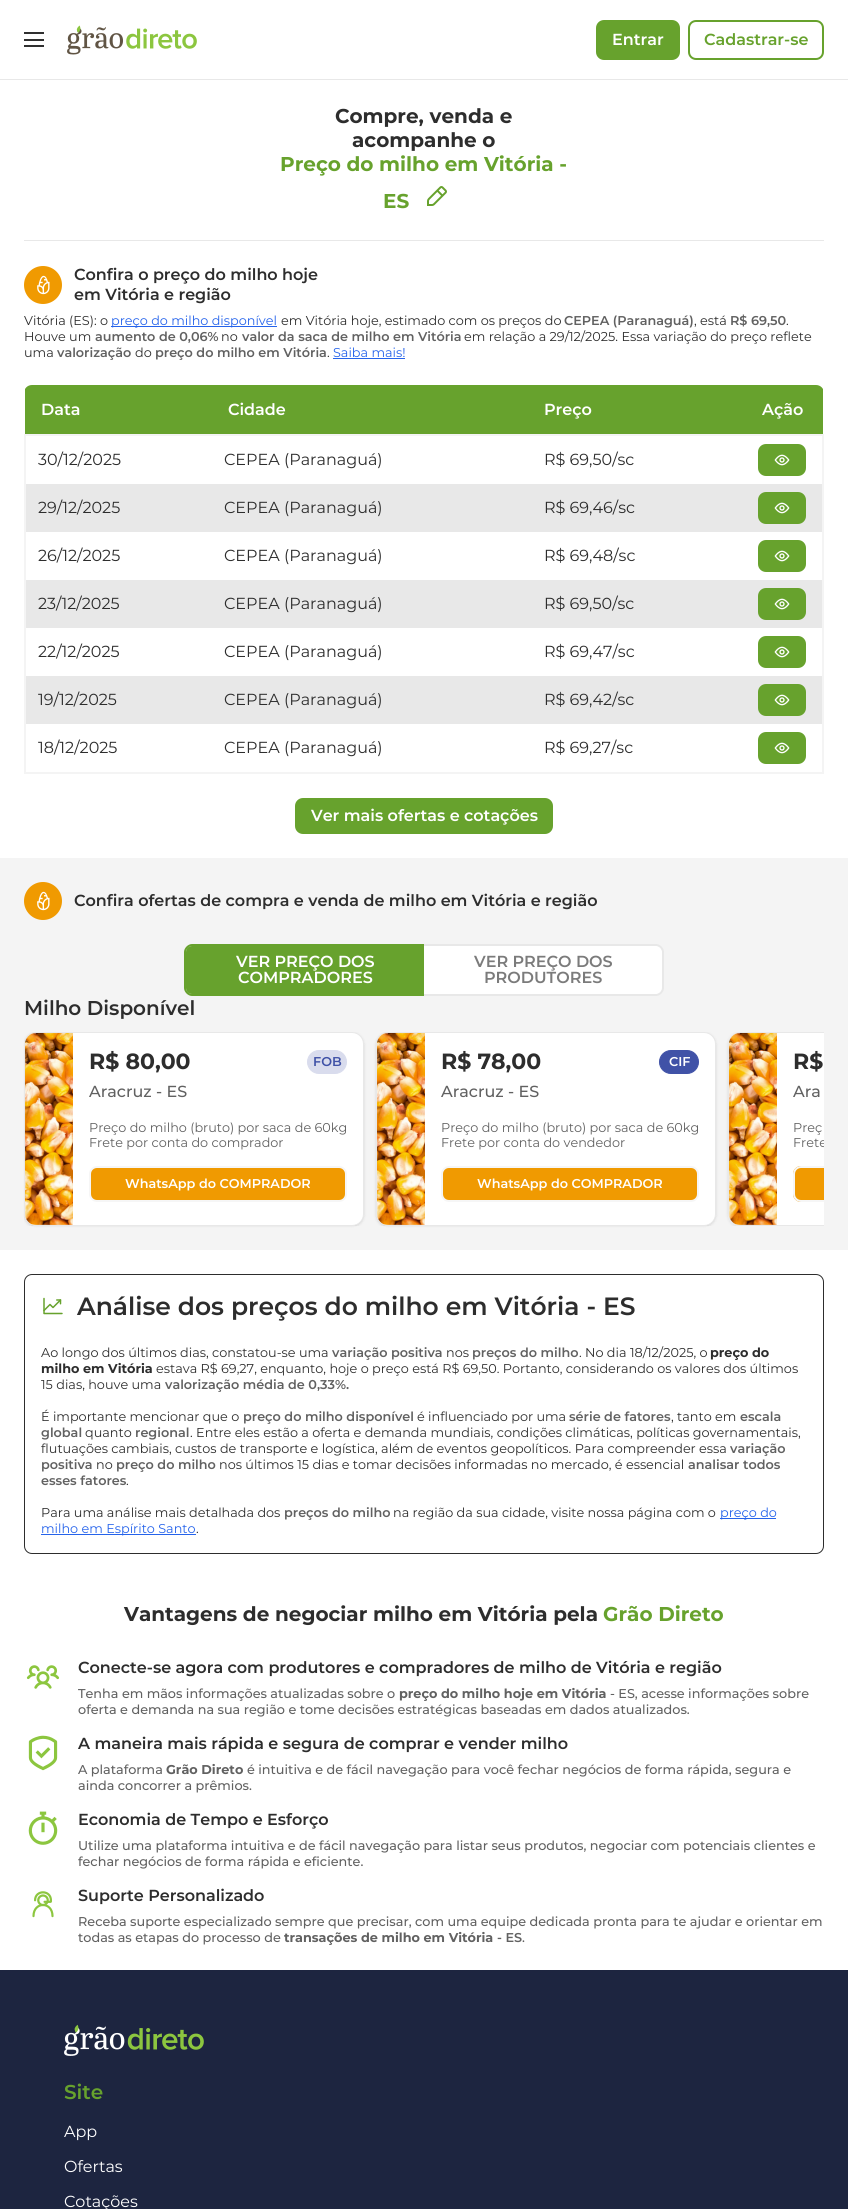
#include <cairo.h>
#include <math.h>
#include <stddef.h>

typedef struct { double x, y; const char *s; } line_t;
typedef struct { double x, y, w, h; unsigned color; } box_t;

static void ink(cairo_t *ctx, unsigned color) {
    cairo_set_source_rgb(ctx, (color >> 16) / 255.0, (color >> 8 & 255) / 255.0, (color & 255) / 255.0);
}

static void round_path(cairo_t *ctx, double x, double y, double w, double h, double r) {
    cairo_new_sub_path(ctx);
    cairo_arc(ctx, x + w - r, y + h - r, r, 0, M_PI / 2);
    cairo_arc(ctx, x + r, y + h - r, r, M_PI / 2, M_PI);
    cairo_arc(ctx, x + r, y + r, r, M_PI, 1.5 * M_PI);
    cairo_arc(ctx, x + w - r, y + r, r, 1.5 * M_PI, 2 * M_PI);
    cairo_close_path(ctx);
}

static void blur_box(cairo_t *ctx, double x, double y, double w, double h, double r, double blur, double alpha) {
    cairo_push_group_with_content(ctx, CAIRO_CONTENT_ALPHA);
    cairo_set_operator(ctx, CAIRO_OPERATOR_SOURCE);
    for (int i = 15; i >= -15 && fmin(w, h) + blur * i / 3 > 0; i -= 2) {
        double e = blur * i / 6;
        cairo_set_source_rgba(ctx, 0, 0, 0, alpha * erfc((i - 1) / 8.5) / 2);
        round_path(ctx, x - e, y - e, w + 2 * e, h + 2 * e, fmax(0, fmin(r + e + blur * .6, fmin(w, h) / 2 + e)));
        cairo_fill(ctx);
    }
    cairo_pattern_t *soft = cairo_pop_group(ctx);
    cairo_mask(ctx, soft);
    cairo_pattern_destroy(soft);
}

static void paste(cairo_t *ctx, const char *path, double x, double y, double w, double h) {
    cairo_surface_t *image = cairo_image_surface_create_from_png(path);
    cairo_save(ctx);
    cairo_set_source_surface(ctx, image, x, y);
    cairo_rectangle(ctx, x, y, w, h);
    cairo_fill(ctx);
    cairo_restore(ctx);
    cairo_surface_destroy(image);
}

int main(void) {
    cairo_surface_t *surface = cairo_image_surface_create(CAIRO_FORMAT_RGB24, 848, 2209);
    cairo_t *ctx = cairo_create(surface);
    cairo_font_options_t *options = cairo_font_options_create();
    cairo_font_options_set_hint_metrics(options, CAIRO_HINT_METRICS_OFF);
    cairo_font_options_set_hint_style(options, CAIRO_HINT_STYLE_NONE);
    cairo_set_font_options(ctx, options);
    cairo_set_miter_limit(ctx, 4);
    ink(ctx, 0xFFFFFF);
    cairo_paint(ctx);
    {
        static const box_t items[] = {
            {0, 79, 848, 1, 0xE8E8E8},
            {24, 32, 20, 2, 0x303030},
            {24, 39, 20, 2, 0x303030},
            {24, 45, 20, 2, 0x303030},
        };
        for (size_t i = 0; i < sizeof items / sizeof *items; i++) {
            ink(ctx, items[i].color);
            cairo_rectangle(ctx, items[i].x, items[i].y, items[i].w, items[i].h);
            cairo_fill(ctx);
        }
    }
    paste(ctx, "media/1.png", 67, 25, 130, 30);
    ink(ctx, 0x67A22D);
    round_path(ctx, 596, 20, 84, 40, 8);
    cairo_fill(ctx);
    cairo_select_font_face(ctx, "Montserrat SemiBold", CAIRO_FONT_SLANT_NORMAL, CAIRO_FONT_WEIGHT_NORMAL);
    cairo_set_font_size(ctx, 16);
    ink(ctx, 0xFFFFFF);
    cairo_move_to(ctx, 612, 45);
    cairo_show_text(ctx, "Entrar");
    round_path(ctx, 689, 21, 134, 38, 7);
    ink(ctx, 0x67A22D);
    cairo_stroke(ctx);
    cairo_move_to(ctx, 704, 45);
    cairo_show_text(ctx, "Cadastrar-se");
    cairo_select_font_face(ctx, "Montserrat", CAIRO_FONT_SLANT_NORMAL, CAIRO_FONT_WEIGHT_BOLD);
    cairo_set_font_size(ctx, 20);
    ink(ctx, 0x2D2D2D);
    cairo_move_to(ctx, 335, 123);
    cairo_show_text(ctx, "Compre, venda e");
    cairo_move_to(ctx, 352, 147);
    cairo_show_text(ctx, "acompanhe o");
    ink(ctx, 0x67A22D);
    cairo_move_to(ctx, 280, 171);
    cairo_show_text(ctx, "Preço do milho em Vitória -");
    cairo_move_to(ctx, 383, 208);
    cairo_show_text(ctx, "ES");
    paste(ctx, "media/2.png", 427, 186, 20, 20);
    ink(ctx, 0xE8E8E8);
    cairo_rectangle(ctx, 24, 240, 800, 1);
    cairo_fill(ctx);
    ink(ctx, 0xF09A01);
    cairo_arc(ctx, 43, 285, 19, 0, 2 * M_PI);
    cairo_fill(ctx);
    paste(ctx, "media/3.png", 37, 275, 13, 20);
    cairo_select_font_face(ctx, "Montserrat SemiBold", CAIRO_FONT_SLANT_NORMAL, CAIRO_FONT_WEIGHT_NORMAL);
    cairo_set_font_size(ctx, 16);
    ink(ctx, 0x2D2D2D);
    cairo_move_to(ctx, 74, 280);
    cairo_show_text(ctx, "Confira o preço do milho hoje");
    cairo_move_to(ctx, 74, 300);
    cairo_show_text(ctx, "em Vitória e região");
    cairo_select_font_face(ctx, "Montserrat", CAIRO_FONT_SLANT_NORMAL, CAIRO_FONT_WEIGHT_NORMAL);
    cairo_set_font_size(ctx, 12.8);
    cairo_move_to(ctx, 24, 325);
    cairo_show_text(ctx, "Vitória (ES): o");
    ink(ctx, 0x2563EB);
    cairo_rectangle(ctx, 111, 326, 166, 1);
    cairo_fill(ctx);
    cairo_move_to(ctx, 111, 325);
    cairo_show_text(ctx, "preço do milho disponível");
    ink(ctx, 0x2D2D2D);
    cairo_move_to(ctx, 281, 325);
    cairo_show_text(ctx, "em Vitória hoje, estimado com os preços do");
    cairo_select_font_face(ctx, "Montserrat SemiBold", CAIRO_FONT_SLANT_NORMAL, CAIRO_FONT_WEIGHT_NORMAL);
    ink(ctx, 0x616161);
    cairo_move_to(ctx, 564, 325);
    cairo_show_text(ctx, "CEPEA (Paranaguá)");
    cairo_select_font_face(ctx, "Montserrat", CAIRO_FONT_SLANT_NORMAL, CAIRO_FONT_WEIGHT_NORMAL);
    ink(ctx, 0x2D2D2D);
    cairo_move_to(ctx, 694, 325);
    cairo_show_text(ctx, ", está");
    cairo_select_font_face(ctx, "Montserrat SemiBold", CAIRO_FONT_SLANT_NORMAL, CAIRO_FONT_WEIGHT_NORMAL);
    ink(ctx, 0x616161);
    cairo_move_to(ctx, 730, 325);
    cairo_show_text(ctx, "R$ 69,50");
    cairo_select_font_face(ctx, "Montserrat", CAIRO_FONT_SLANT_NORMAL, CAIRO_FONT_WEIGHT_NORMAL);
    ink(ctx, 0x2D2D2D);
    cairo_move_to(ctx, 786, 325);
    cairo_show_text(ctx, ".");
    cairo_move_to(ctx, 24, 341);
    cairo_show_text(ctx, "Houve um");
    cairo_select_font_face(ctx, "Montserrat SemiBold", CAIRO_FONT_SLANT_NORMAL, CAIRO_FONT_WEIGHT_NORMAL);
    ink(ctx, 0x616161);
    cairo_move_to(ctx, 95, 341);
    cairo_show_text(ctx, "aumento de 0,06%");
    cairo_select_font_face(ctx, "Montserrat", CAIRO_FONT_SLANT_NORMAL, CAIRO_FONT_WEIGHT_NORMAL);
    ink(ctx, 0x2D2D2D);
    cairo_move_to(ctx, 221, 341);
    cairo_show_text(ctx, "no");
    cairo_select_font_face(ctx, "Montserrat SemiBold", CAIRO_FONT_SLANT_NORMAL, CAIRO_FONT_WEIGHT_NORMAL);
    ink(ctx, 0x616161);
    cairo_move_to(ctx, 242, 341);
    cairo_show_text(ctx, "valor da saca de milho em Vitória");
    cairo_select_font_face(ctx, "Montserrat", CAIRO_FONT_SLANT_NORMAL, CAIRO_FONT_WEIGHT_NORMAL);
    ink(ctx, 0x2D2D2D);
    cairo_move_to(ctx, 464, 341);
    cairo_show_text(ctx, "em relação a 29/12/2025. Essa variação do preço reflete");
    cairo_move_to(ctx, 24, 357);
    cairo_show_text(ctx, "uma");
    cairo_select_font_face(ctx, "Montserrat SemiBold", CAIRO_FONT_SLANT_NORMAL, CAIRO_FONT_WEIGHT_NORMAL);
    ink(ctx, 0x616161);
    cairo_move_to(ctx, 57, 357);
    cairo_show_text(ctx, "valorização");
    cairo_select_font_face(ctx, "Montserrat", CAIRO_FONT_SLANT_NORMAL, CAIRO_FONT_WEIGHT_NORMAL);
    ink(ctx, 0x2D2D2D);
    cairo_move_to(ctx, 135, 357);
    cairo_show_text(ctx, "do");
    cairo_select_font_face(ctx, "Montserrat SemiBold", CAIRO_FONT_SLANT_NORMAL, CAIRO_FONT_WEIGHT_NORMAL);
    ink(ctx, 0x616161);
    cairo_move_to(ctx, 155, 357);
    cairo_show_text(ctx, "preço do milho em Vitória");
    cairo_select_font_face(ctx, "Montserrat", CAIRO_FONT_SLANT_NORMAL, CAIRO_FONT_WEIGHT_NORMAL);
    ink(ctx, 0x2D2D2D);
    cairo_move_to(ctx, 327, 357);
    cairo_show_text(ctx, ".");
    ink(ctx, 0x2563EB);
    cairo_move_to(ctx, 333, 357);
    cairo_show_text(ctx, "Saiba mais!");
    cairo_rectangle(ctx, 333, 358, 72, 1);
    cairo_fill(ctx);
    cairo_save(ctx);
    cairo_new_path(ctx);
    cairo_move_to(ctx, 32, 385);
    cairo_line_to(ctx, 816, 385);
    cairo_curve_to(ctx, 820.5, 385, 824, 388.5, 824, 393);
    cairo_line_to(ctx, 824, 774);
    cairo_line_to(ctx, 24, 774);
    cairo_line_to(ctx, 24, 393);
    cairo_curve_to(ctx, 24, 388.5, 27.5, 385, 32, 385);
    cairo_close_path(ctx);
    cairo_clip(ctx);
    ink(ctx, 0x67A22D);
    cairo_rectangle(ctx, 25, 385, 798, 49);
    cairo_fill(ctx);
    cairo_restore(ctx);
    cairo_select_font_face(ctx, "Montserrat SemiBold", CAIRO_FONT_SLANT_NORMAL, CAIRO_FONT_WEIGHT_NORMAL);
    cairo_set_font_size(ctx, 16);
    ink(ctx, 0xFFFFFF);
    {
        static const line_t items[] = {
            {41, 415, "Data"},
            {228, 415, "Cidade"},
            {544, 415, "Preço"},
            {762, 415, "Ação"},
        };
        for (size_t i = 0; i < sizeof items / sizeof *items; i++) {
            cairo_move_to(ctx, items[i].x, items[i].y);
            cairo_show_text(ctx, items[i].s);
        }
    }
    {
        static const box_t items[] = {
            {24, 434, 800, 2, 0xF4F4F4},
            {822, 434, 2, 340, 0xF4F4F4},
            {24, 772, 800, 2, 0xF4F4F4},
            {24, 434, 2, 340, 0xF4F4F4},
        };
        for (size_t i = 0; i < sizeof items / sizeof *items; i++) {
            ink(ctx, items[i].color);
            cairo_rectangle(ctx, items[i].x, items[i].y, items[i].w, items[i].h);
            cairo_fill(ctx);
        }
    }
    cairo_select_font_face(ctx, "Montserrat", CAIRO_FONT_SLANT_NORMAL, CAIRO_FONT_WEIGHT_NORMAL);
    ink(ctx, 0x2D2D2D);
    {
        static const line_t items[] = {
            {38, 465, "30/12/2025"},
            {224, 465, "CEPEA (Paranaguá)"},
            {544, 465, "R$ 69,50/sc"},
        };
        for (size_t i = 0; i < sizeof items / sizeof *items; i++) {
            cairo_move_to(ctx, items[i].x, items[i].y);
            cairo_show_text(ctx, items[i].s);
        }
    }
    ink(ctx, 0x67A22D);
    round_path(ctx, 758, 444, 48, 32, 8);
    cairo_fill(ctx);
    paste(ctx, "media/4.png", 774, 454, 16, 12);
    ink(ctx, 0xE8E8E8);
    cairo_rectangle(ctx, 26, 484, 796, 48);
    cairo_fill(ctx);
    ink(ctx, 0x2D2D2D);
    {
        static const line_t items[] = {
            {38, 513, "29/12/2025"},
            {224, 513, "CEPEA (Paranaguá)"},
            {544, 513, "R$ 69,46/sc"},
        };
        for (size_t i = 0; i < sizeof items / sizeof *items; i++) {
            cairo_move_to(ctx, items[i].x, items[i].y);
            cairo_show_text(ctx, items[i].s);
        }
    }
    ink(ctx, 0x67A22D);
    round_path(ctx, 758, 492, 48, 32, 8);
    cairo_fill(ctx);
    paste(ctx, "media/4.png", 774, 502, 16, 12);
    ink(ctx, 0x2D2D2D);
    {
        static const line_t items[] = {
            {38, 561, "26/12/2025"},
            {224, 561, "CEPEA (Paranaguá)"},
            {544, 561, "R$ 69,48/sc"},
        };
        for (size_t i = 0; i < sizeof items / sizeof *items; i++) {
            cairo_move_to(ctx, items[i].x, items[i].y);
            cairo_show_text(ctx, items[i].s);
        }
    }
    ink(ctx, 0x67A22D);
    round_path(ctx, 758, 540, 48, 32, 8);
    cairo_fill(ctx);
    paste(ctx, "media/4.png", 774, 550, 16, 12);
    ink(ctx, 0xE8E8E8);
    cairo_rectangle(ctx, 26, 580, 796, 48);
    cairo_fill(ctx);
    ink(ctx, 0x2D2D2D);
    {
        static const line_t items[] = {
            {38, 609, "23/12/2025"},
            {224, 609, "CEPEA (Paranaguá)"},
            {544, 609, "R$ 69,50/sc"},
        };
        for (size_t i = 0; i < sizeof items / sizeof *items; i++) {
            cairo_move_to(ctx, items[i].x, items[i].y);
            cairo_show_text(ctx, items[i].s);
        }
    }
    ink(ctx, 0x67A22D);
    round_path(ctx, 758, 588, 48, 32, 8);
    cairo_fill(ctx);
    paste(ctx, "media/4.png", 774, 598, 16, 12);
    ink(ctx, 0x2D2D2D);
    {
        static const line_t items[] = {
            {38, 657, "22/12/2025"},
            {224, 657, "CEPEA (Paranaguá)"},
            {544, 657, "R$ 69,47/sc"},
        };
        for (size_t i = 0; i < sizeof items / sizeof *items; i++) {
            cairo_move_to(ctx, items[i].x, items[i].y);
            cairo_show_text(ctx, items[i].s);
        }
    }
    ink(ctx, 0x67A22D);
    round_path(ctx, 758, 636, 48, 32, 8);
    cairo_fill(ctx);
    paste(ctx, "media/4.png", 774, 646, 16, 12);
    ink(ctx, 0xE8E8E8);
    cairo_rectangle(ctx, 26, 676, 796, 48);
    cairo_fill(ctx);
    ink(ctx, 0x2D2D2D);
    {
        static const line_t items[] = {
            {38, 705, "19/12/2025"},
            {224, 705, "CEPEA (Paranaguá)"},
            {544, 705, "R$ 69,42/sc"},
        };
        for (size_t i = 0; i < sizeof items / sizeof *items; i++) {
            cairo_move_to(ctx, items[i].x, items[i].y);
            cairo_show_text(ctx, items[i].s);
        }
    }
    ink(ctx, 0x67A22D);
    round_path(ctx, 758, 684, 48, 32, 8);
    cairo_fill(ctx);
    paste(ctx, "media/4.png", 774, 694, 16, 12);
    ink(ctx, 0x2D2D2D);
    {
        static const line_t items[] = {
            {38, 753, "18/12/2025"},
            {224, 753, "CEPEA (Paranaguá)"},
            {544, 753, "R$ 69,27/sc"},
        };
        for (size_t i = 0; i < sizeof items / sizeof *items; i++) {
            cairo_move_to(ctx, items[i].x, items[i].y);
            cairo_show_text(ctx, items[i].s);
        }
    }
    ink(ctx, 0x67A22D);
    round_path(ctx, 758, 732, 48, 32, 8);
    cairo_fill(ctx);
    paste(ctx, "media/4.png", 774, 742, 16, 12);
    round_path(ctx, 295, 798, 258, 36, 8);
    cairo_fill(ctx);
    cairo_select_font_face(ctx, "Montserrat SemiBold", CAIRO_FONT_SLANT_NORMAL, CAIRO_FONT_WEIGHT_NORMAL);
    ink(ctx, 0xFFFFFF);
    cairo_move_to(ctx, 311, 821);
    cairo_show_text(ctx, "Ver mais ofertas e cotações");
    ink(ctx, 0xF4F4F4);
    cairo_rectangle(ctx, 0, 858, 848, 392);
    cairo_fill(ctx);
    ink(ctx, 0xF09A01);
    cairo_arc(ctx, 43, 901, 19, 0, 2 * M_PI);
    cairo_fill(ctx);
    paste(ctx, "media/3.png", 37, 891, 13, 20);
    ink(ctx, 0x2D2D2D);
    cairo_move_to(ctx, 74, 906);
    cairo_show_text(ctx, "Confira ofertas de compra e venda de milho em Vitória e região");
    ink(ctx, 0x67A22D);
    cairo_new_path(ctx);
    cairo_move_to(ctx, 192, 946);
    cairo_line_to(ctx, 424, 946);
    cairo_line_to(ctx, 424, 994);
    cairo_line_to(ctx, 192, 994);
    cairo_curve_to(ctx, 188.5, 994, 186, 991.5, 186, 988);
    cairo_line_to(ctx, 186, 952);
    cairo_curve_to(ctx, 186, 948.5, 188.5, 946, 192, 946);
    cairo_close_path(ctx);
    cairo_fill(ctx);
    cairo_set_fill_rule(ctx, CAIRO_FILL_RULE_EVEN_ODD);
    cairo_new_path(ctx);
    cairo_move_to(ctx, 192, 944);
    cairo_line_to(ctx, 424, 944);
    cairo_line_to(ctx, 424, 996);
    cairo_line_to(ctx, 192, 996);
    cairo_curve_to(ctx, 188, 996, 184, 992, 184, 988);
    cairo_line_to(ctx, 184, 952);
    cairo_curve_to(ctx, 184, 948, 188, 944, 192, 944);
    cairo_close_path(ctx);
    cairo_move_to(ctx, 192, 946);
    cairo_line_to(ctx, 424, 946);
    cairo_line_to(ctx, 424, 994);
    cairo_line_to(ctx, 192, 994);
    cairo_curve_to(ctx, 189, 994, 186, 991, 186, 988);
    cairo_line_to(ctx, 186, 952);
    cairo_curve_to(ctx, 186, 949, 189, 946, 192, 946);
    cairo_close_path(ctx);
    cairo_fill(ctx);
    ink(ctx, 0xFFFFFF);
    cairo_move_to(ctx, 236, 967);
    cairo_show_text(ctx, "VER PREÇO DOS");
    cairo_move_to(ctx, 238, 983);
    cairo_show_text(ctx, "COMPRADORES");
    cairo_new_path(ctx);
    cairo_move_to(ctx, 424, 946);
    cairo_line_to(ctx, 656, 946);
    cairo_curve_to(ctx, 659.5, 946, 662, 948.5, 662, 952);
    cairo_line_to(ctx, 662, 988);
    cairo_curve_to(ctx, 662, 991.5, 659.5, 994, 656, 994);
    cairo_line_to(ctx, 424, 994);
    cairo_close_path(ctx);
    cairo_fill(ctx);
    ink(ctx, 0xE8E8E8);
    cairo_new_path(ctx);
    cairo_move_to(ctx, 424, 944);
    cairo_line_to(ctx, 656, 944);
    cairo_curve_to(ctx, 660, 944, 664, 948, 664, 952);
    cairo_line_to(ctx, 664, 988);
    cairo_curve_to(ctx, 664, 992, 660, 996, 656, 996);
    cairo_line_to(ctx, 424, 996);
    cairo_close_path(ctx);
    cairo_move_to(ctx, 424, 946);
    cairo_line_to(ctx, 656, 946);
    cairo_curve_to(ctx, 659, 946, 662, 949, 662, 952);
    cairo_line_to(ctx, 662, 988);
    cairo_curve_to(ctx, 662, 991, 659, 994, 656, 994);
    cairo_line_to(ctx, 424, 994);
    cairo_close_path(ctx);
    cairo_fill(ctx);
    ink(ctx, 0x7B7B7B);
    cairo_move_to(ctx, 474, 967);
    cairo_show_text(ctx, "VER PREÇO DOS");
    cairo_move_to(ctx, 484, 983);
    cairo_show_text(ctx, "PRODUTORES");
    cairo_set_font_size(ctx, 20);
    ink(ctx, 0x2D2D2D);
    cairo_move_to(ctx, 24, 1015);
    cairo_show_text(ctx, "Milho Disponível");
    ink(ctx, 0x000000);
    blur_box(ctx, 25, 1034, 338, 192, 11, 1, 0.1);
    cairo_save(ctx);
    cairo_set_fill_rule(ctx, CAIRO_FILL_RULE_WINDING);
    cairo_rectangle(ctx, 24, 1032, 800, 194);
    cairo_clip(ctx);
    blur_box(ctx, 24, 1033, 340, 194, 12, 1.5, 0.1);
    cairo_restore(ctx);
    ink(ctx, 0xFFFFFF);
    round_path(ctx, 24.5, 1032.5, 339, 193, 11.5);
    cairo_fill_preserve(ctx);
    ink(ctx, 0xE8E8E8);
    cairo_set_line_width(ctx, 1);
    cairo_stroke(ctx);
    paste(ctx, "media/5.png", 25, 1033, 48, 192);
    cairo_select_font_face(ctx, "Montserrat", CAIRO_FONT_SLANT_NORMAL, CAIRO_FONT_WEIGHT_BOLD);
    cairo_set_font_size(ctx, 22);
    ink(ctx, 0x2D2D2D);
    cairo_move_to(ctx, 89, 1069);
    cairo_show_text(ctx, "R$ 80,00");
    ink(ctx, 0xD9DCED);
    round_path(ctx, 307.5, 1050.5, 39, 23, 11.5);
    cairo_fill_preserve(ctx);
    cairo_stroke(ctx);
    cairo_select_font_face(ctx, "Montserrat SemiBold", CAIRO_FONT_SLANT_NORMAL, CAIRO_FONT_WEIGHT_NORMAL);
    cairo_set_font_size(ctx, 12.8);
    ink(ctx, 0x4052A7);
    cairo_move_to(ctx, 313, 1066);
    cairo_show_text(ctx, "FOB");
    cairo_select_font_face(ctx, "Montserrat Medium", CAIRO_FONT_SLANT_NORMAL, CAIRO_FONT_WEIGHT_NORMAL);
    cairo_set_font_size(ctx, 16);
    ink(ctx, 0x616161);
    cairo_move_to(ctx, 89, 1097);
    cairo_show_text(ctx, "Aracruz - ES");
    cairo_select_font_face(ctx, "Montserrat", CAIRO_FONT_SLANT_NORMAL, CAIRO_FONT_WEIGHT_NORMAL);
    cairo_set_font_size(ctx, 12.8);
    cairo_move_to(ctx, 89, 1132);
    cairo_show_text(ctx, "Preço do milho (bruto) por saca de 60kg");
    cairo_move_to(ctx, 89, 1147);
    cairo_show_text(ctx, "Frete por conta do comprador");
    ink(ctx, 0xF09A01);
    round_path(ctx, 90, 1167, 256, 34, 7);
    cairo_fill_preserve(ctx);
    ink(ctx, 0xF6F6F6);
    cairo_set_line_width(ctx, 2);
    cairo_stroke(ctx);
    cairo_select_font_face(ctx, "Montserrat SemiBold", CAIRO_FONT_SLANT_NORMAL, CAIRO_FONT_WEIGHT_NORMAL);
    ink(ctx, 0xFFFFFF);
    cairo_move_to(ctx, 125, 1188);
    cairo_show_text(ctx, "WhatsApp do COMPRADOR");
    ink(ctx, 0x000000);
    blur_box(ctx, 377, 1034, 338, 192, 11, 1, 0.1);
    cairo_save(ctx);
    cairo_set_fill_rule(ctx, CAIRO_FILL_RULE_WINDING);
    cairo_rectangle(ctx, 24, 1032, 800, 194);
    cairo_clip(ctx);
    blur_box(ctx, 376, 1033, 340, 194, 12, 1.5, 0.1);
    cairo_restore(ctx);
    ink(ctx, 0xFFFFFF);
    round_path(ctx, 376.5, 1032.5, 339, 193, 11.5);
    cairo_fill_preserve(ctx);
    ink(ctx, 0xE8E8E8);
    cairo_set_line_width(ctx, 1);
    cairo_stroke(ctx);
    paste(ctx, "media/5.png", 377, 1033, 48, 192);
    cairo_select_font_face(ctx, "Montserrat", CAIRO_FONT_SLANT_NORMAL, CAIRO_FONT_WEIGHT_BOLD);
    cairo_set_font_size(ctx, 22);
    ink(ctx, 0x2D2D2D);
    cairo_move_to(ctx, 441, 1069);
    cairo_show_text(ctx, "R$ 78,00");
    ink(ctx, 0x4052A7);
    round_path(ctx, 659.5, 1050.5, 39, 23, 11.5);
    cairo_fill_preserve(ctx);
    cairo_stroke(ctx);
    cairo_select_font_face(ctx, "Montserrat SemiBold", CAIRO_FONT_SLANT_NORMAL, CAIRO_FONT_WEIGHT_NORMAL);
    cairo_set_font_size(ctx, 12.8);
    ink(ctx, 0xFFFFFF);
    cairo_move_to(ctx, 669, 1066);
    cairo_show_text(ctx, "CIF");
    cairo_select_font_face(ctx, "Montserrat Medium", CAIRO_FONT_SLANT_NORMAL, CAIRO_FONT_WEIGHT_NORMAL);
    cairo_set_font_size(ctx, 16);
    ink(ctx, 0x616161);
    cairo_move_to(ctx, 441, 1097);
    cairo_show_text(ctx, "Aracruz - ES");
    cairo_select_font_face(ctx, "Montserrat", CAIRO_FONT_SLANT_NORMAL, CAIRO_FONT_WEIGHT_NORMAL);
    cairo_set_font_size(ctx, 12.8);
    cairo_move_to(ctx, 441, 1132);
    cairo_show_text(ctx, "Preço do milho (bruto) por saca de 60kg");
    cairo_move_to(ctx, 441, 1147);
    cairo_show_text(ctx, "Frete por conta do vendedor");
    ink(ctx, 0xF09A01);
    round_path(ctx, 442, 1167, 256, 34, 7);
    cairo_fill_preserve(ctx);
    ink(ctx, 0xF6F6F6);
    cairo_set_line_width(ctx, 2);
    cairo_stroke(ctx);
    cairo_select_font_face(ctx, "Montserrat SemiBold", CAIRO_FONT_SLANT_NORMAL, CAIRO_FONT_WEIGHT_NORMAL);
    ink(ctx, 0xFFFFFF);
    cairo_move_to(ctx, 477, 1188);
    cairo_show_text(ctx, "WhatsApp do COMPRADOR");
    cairo_save(ctx);
    cairo_set_fill_rule(ctx, CAIRO_FILL_RULE_WINDING);
    cairo_rectangle(ctx, 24, 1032, 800, 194);
    cairo_clip(ctx);
    ink(ctx, 0x000000);
    blur_box(ctx, 728, 1033, 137, 194, 12, 1.5, 0.1);
    cairo_restore(ctx);
    cairo_new_path(ctx);
    cairo_move_to(ctx, 740, 1032);
    cairo_line_to(ctx, 824, 1032);
    cairo_line_to(ctx, 824, 1226);
    cairo_line_to(ctx, 740, 1226);
    cairo_curve_to(ctx, 733.5, 1226, 728, 1220.5, 728, 1214);
    cairo_line_to(ctx, 728, 1044);
    cairo_curve_to(ctx, 728, 1037.5, 733.5, 1032, 740, 1032);
    cairo_close_path(ctx);
    cairo_fill(ctx);
    cairo_save(ctx);
    cairo_set_fill_rule(ctx, CAIRO_FILL_RULE_WINDING);
    cairo_rectangle(ctx, 24, 1032, 800, 194);
    cairo_clip(ctx);
    round_path(ctx, 728.5, 1032.5, 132, 193, 11.5);
    ink(ctx, 0xE8E8E8);
    cairo_set_line_width(ctx, 1);
    cairo_stroke(ctx);
    cairo_restore(ctx);
    paste(ctx, "media/5.png", 729, 1033, 48, 192);
    cairo_select_font_face(ctx, "Montserrat", CAIRO_FONT_SLANT_NORMAL, CAIRO_FONT_WEIGHT_BOLD);
    cairo_set_font_size(ctx, 22);
    ink(ctx, 0x2D2D2D);
    cairo_move_to(ctx, 793, 1069);
    cairo_show_text(ctx, "R$");
    cairo_select_font_face(ctx, "Montserrat Medium", CAIRO_FONT_SLANT_NORMAL, CAIRO_FONT_WEIGHT_NORMAL);
    cairo_set_font_size(ctx, 16);
    ink(ctx, 0x616161);
    cairo_move_to(ctx, 793, 1097);
    cairo_show_text(ctx, "Ara");
    cairo_select_font_face(ctx, "Montserrat", CAIRO_FONT_SLANT_NORMAL, CAIRO_FONT_WEIGHT_NORMAL);
    cairo_set_font_size(ctx, 12.8);
    cairo_move_to(ctx, 793, 1132);
    cairo_show_text(ctx, "Preç");
    cairo_save(ctx);
    cairo_set_fill_rule(ctx, CAIRO_FILL_RULE_WINDING);
    cairo_rectangle(ctx, 24, 1032, 800, 194);
    cairo_clip(ctx);
    cairo_move_to(ctx, 793, 1147);
    cairo_show_text(ctx, "Frete");
    cairo_restore(ctx);
    ink(ctx, 0xF09A01);
    cairo_new_path(ctx);
    cairo_move_to(ctx, 801, 1166);
    cairo_line_to(ctx, 824, 1166);
    cairo_line_to(ctx, 824, 1202);
    cairo_line_to(ctx, 801, 1202);
    cairo_curve_to(ctx, 796.5, 1202, 793, 1198.5, 793, 1194);
    cairo_line_to(ctx, 793, 1174);
    cairo_curve_to(ctx, 793, 1169.5, 796.5, 1166, 801, 1166);
    cairo_close_path(ctx);
    cairo_fill(ctx);
    cairo_save(ctx);
    cairo_set_fill_rule(ctx, CAIRO_FILL_RULE_WINDING);
    cairo_rectangle(ctx, 24, 1032, 800, 194);
    cairo_clip(ctx);
    round_path(ctx, 794, 1167, 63, 34, 7);
    ink(ctx, 0xF6F6F6);
    cairo_stroke(ctx);
    cairo_restore(ctx);
    round_path(ctx, 24.5, 1274.5, 799, 279, 7.5);
    ink(ctx, 0x2D2D2D);
    cairo_set_line_width(ctx, 1);
    cairo_stroke(ctx);
    paste(ctx, "media/6.png", 43, 1297, 20, 18);
    cairo_select_font_face(ctx, "Montserrat SemiBold", CAIRO_FONT_SLANT_NORMAL, CAIRO_FONT_WEIGHT_NORMAL);
    cairo_set_font_size(ctx, 25);
    cairo_move_to(ctx, 77, 1315);
    cairo_show_text(ctx, "Análise dos preços do milho em Vitória - ES");
    cairo_select_font_face(ctx, "Montserrat", CAIRO_FONT_SLANT_NORMAL, CAIRO_FONT_WEIGHT_NORMAL);
    cairo_set_font_size(ctx, 12.8);
    cairo_move_to(ctx, 41, 1357);
    cairo_show_text(ctx, "Ao longo dos últimos dias, constatou-se uma");
    cairo_select_font_face(ctx, "Montserrat SemiBold", CAIRO_FONT_SLANT_NORMAL, CAIRO_FONT_WEIGHT_NORMAL);
    ink(ctx, 0x616161);
    cairo_move_to(ctx, 332, 1357);
    cairo_show_text(ctx, "variação positiva");
    cairo_select_font_face(ctx, "Montserrat", CAIRO_FONT_SLANT_NORMAL, CAIRO_FONT_WEIGHT_NORMAL);
    ink(ctx, 0x2D2D2D);
    cairo_move_to(ctx, 446, 1357);
    cairo_show_text(ctx, "nos");
    cairo_select_font_face(ctx, "Montserrat SemiBold", CAIRO_FONT_SLANT_NORMAL, CAIRO_FONT_WEIGHT_NORMAL);
    ink(ctx, 0x616161);
    cairo_move_to(ctx, 472, 1357);
    cairo_show_text(ctx, "preços do milho");
    cairo_select_font_face(ctx, "Montserrat", CAIRO_FONT_SLANT_NORMAL, CAIRO_FONT_WEIGHT_NORMAL);
    ink(ctx, 0x2D2D2D);
    cairo_move_to(ctx, 579, 1357);
    cairo_show_text(ctx, ". No dia 18/12/2025, o");
    cairo_select_font_face(ctx, "Montserrat", CAIRO_FONT_SLANT_NORMAL, CAIRO_FONT_WEIGHT_BOLD);
    cairo_move_to(ctx, 710, 1357);
    cairo_show_text(ctx, "preço do");
    cairo_move_to(ctx, 41, 1373);
    cairo_show_text(ctx, "milho em Vitória");
    cairo_select_font_face(ctx, "Montserrat", CAIRO_FONT_SLANT_NORMAL, CAIRO_FONT_WEIGHT_NORMAL);
    cairo_move_to(ctx, 156, 1373);
    cairo_show_text(ctx, "estava R$ 69,27, enquanto, hoje o preço está R$ 69,50. Portanto, considerando os valores dos últimos");
    cairo_move_to(ctx, 41, 1389);
    cairo_show_text(ctx, "15 dias, houve uma");
    cairo_select_font_face(ctx, "Montserrat SemiBold", CAIRO_FONT_SLANT_NORMAL, CAIRO_FONT_WEIGHT_NORMAL);
    ink(ctx, 0x616161);
    cairo_move_to(ctx, 165, 1389);
    cairo_show_text(ctx, "valorização média de 0,33%.");
    cairo_select_font_face(ctx, "Montserrat", CAIRO_FONT_SLANT_NORMAL, CAIRO_FONT_WEIGHT_NORMAL);
    ink(ctx, 0x2D2D2D);
    cairo_move_to(ctx, 41, 1421);
    cairo_show_text(ctx, "É importante mencionar que o");
    cairo_select_font_face(ctx, "Montserrat SemiBold", CAIRO_FONT_SLANT_NORMAL, CAIRO_FONT_WEIGHT_NORMAL);
    ink(ctx, 0x616161);
    cairo_move_to(ctx, 243, 1421);
    cairo_show_text(ctx, "preço do milho disponível");
    cairo_select_font_face(ctx, "Montserrat", CAIRO_FONT_SLANT_NORMAL, CAIRO_FONT_WEIGHT_NORMAL);
    ink(ctx, 0x2D2D2D);
    cairo_move_to(ctx, 417, 1421);
    cairo_show_text(ctx, "é influenciado por uma");
    cairo_select_font_face(ctx, "Montserrat SemiBold", CAIRO_FONT_SLANT_NORMAL, CAIRO_FONT_WEIGHT_NORMAL);
    ink(ctx, 0x616161);
    cairo_move_to(ctx, 569, 1421);
    cairo_show_text(ctx, "série de fatores");
    cairo_select_font_face(ctx, "Montserrat", CAIRO_FONT_SLANT_NORMAL, CAIRO_FONT_WEIGHT_NORMAL);
    ink(ctx, 0x2D2D2D);
    cairo_move_to(ctx, 671, 1421);
    cairo_show_text(ctx, ", tanto em");
    cairo_select_font_face(ctx, "Montserrat SemiBold", CAIRO_FONT_SLANT_NORMAL, CAIRO_FONT_WEIGHT_NORMAL);
    ink(ctx, 0x616161);
    cairo_move_to(ctx, 740, 1421);
    cairo_show_text(ctx, "escala");
    cairo_move_to(ctx, 41, 1437);
    cairo_show_text(ctx, "global");
    cairo_select_font_face(ctx, "Montserrat", CAIRO_FONT_SLANT_NORMAL, CAIRO_FONT_WEIGHT_NORMAL);
    ink(ctx, 0x2D2D2D);
    cairo_move_to(ctx, 85, 1437);
    cairo_show_text(ctx, "quanto");
    cairo_select_font_face(ctx, "Montserrat SemiBold", CAIRO_FONT_SLANT_NORMAL, CAIRO_FONT_WEIGHT_NORMAL);
    ink(ctx, 0x616161);
    cairo_move_to(ctx, 135, 1437);
    cairo_show_text(ctx, "regional");
    cairo_select_font_face(ctx, "Montserrat", CAIRO_FONT_SLANT_NORMAL, CAIRO_FONT_WEIGHT_NORMAL);
    ink(ctx, 0x2D2D2D);
    cairo_move_to(ctx, 190, 1437);
    cairo_show_text(ctx, ". Entre eles estão a oferta e demanda mundiais, condições climáticas, políticas governamentais,");
    cairo_move_to(ctx, 41, 1453);
    cairo_show_text(ctx, "flutuações cambiais, custos de transporte e logística, além de eventos geopolíticos. Para compreender essa");
    cairo_select_font_face(ctx, "Montserrat SemiBold", CAIRO_FONT_SLANT_NORMAL, CAIRO_FONT_WEIGHT_NORMAL);
    ink(ctx, 0x616161);
    cairo_move_to(ctx, 730, 1453);
    cairo_show_text(ctx, "variação");
    cairo_move_to(ctx, 41, 1469);
    cairo_show_text(ctx, "positiva");
    cairo_select_font_face(ctx, "Montserrat", CAIRO_FONT_SLANT_NORMAL, CAIRO_FONT_WEIGHT_NORMAL);
    ink(ctx, 0x2D2D2D);
    cairo_move_to(ctx, 96, 1469);
    cairo_show_text(ctx, "no");
    cairo_select_font_face(ctx, "Montserrat SemiBold", CAIRO_FONT_SLANT_NORMAL, CAIRO_FONT_WEIGHT_NORMAL);
    ink(ctx, 0x616161);
    cairo_move_to(ctx, 116, 1469);
    cairo_show_text(ctx, "preço do milho");
    cairo_select_font_face(ctx, "Montserrat", CAIRO_FONT_SLANT_NORMAL, CAIRO_FONT_WEIGHT_NORMAL);
    ink(ctx, 0x2D2D2D);
    cairo_move_to(ctx, 219, 1469);
    cairo_show_text(ctx, "nos últimos 15 dias e tomar decisões informadas no mercado, é essencial");
    cairo_select_font_face(ctx, "Montserrat SemiBold", CAIRO_FONT_SLANT_NORMAL, CAIRO_FONT_WEIGHT_NORMAL);
    ink(ctx, 0x616161);
    cairo_move_to(ctx, 688, 1469);
    cairo_show_text(ctx, "analisar todos");
    cairo_move_to(ctx, 41, 1485);
    cairo_show_text(ctx, "esses fatores");
    cairo_select_font_face(ctx, "Montserrat", CAIRO_FONT_SLANT_NORMAL, CAIRO_FONT_WEIGHT_NORMAL);
    ink(ctx, 0x2D2D2D);
    cairo_move_to(ctx, 126, 1485);
    cairo_show_text(ctx, ".");
    cairo_move_to(ctx, 41, 1517);
    cairo_show_text(ctx, "Para uma análise mais detalhada dos");
    cairo_select_font_face(ctx, "Montserrat SemiBold", CAIRO_FONT_SLANT_NORMAL, CAIRO_FONT_WEIGHT_NORMAL);
    ink(ctx, 0x616161);
    cairo_move_to(ctx, 284, 1517);
    cairo_show_text(ctx, "preços do milho");
    cairo_select_font_face(ctx, "Montserrat", CAIRO_FONT_SLANT_NORMAL, CAIRO_FONT_WEIGHT_NORMAL);
    ink(ctx, 0x2D2D2D);
    cairo_move_to(ctx, 393, 1517);
    cairo_show_text(ctx, "na região da sua cidade, visite nossa página com o");
    ink(ctx, 0x2563EB);
    cairo_rectangle(ctx, 720, 1518, 56, 1);
    cairo_fill(ctx);
    cairo_move_to(ctx, 720, 1517);
    cairo_show_text(ctx, "preço do");
    cairo_rectangle(ctx, 41, 1534, 155, 1);
    cairo_fill(ctx);
    cairo_move_to(ctx, 41, 1533);
    cairo_show_text(ctx, "milho em Espírito Santo");
    ink(ctx, 0x2D2D2D);
    cairo_move_to(ctx, 196, 1533);
    cairo_show_text(ctx, ".");
    cairo_select_font_face(ctx, "Montserrat", CAIRO_FONT_SLANT_NORMAL, CAIRO_FONT_WEIGHT_BOLD);
    cairo_set_font_size(ctx, 20);
    cairo_move_to(ctx, 124, 1621);
    cairo_show_text(ctx, "Vantagens de negociar milho em Vitória pela");
    ink(ctx, 0x67A22D);
    cairo_move_to(ctx, 603, 1621);
    cairo_show_text(ctx, "Grão Direto");
    paste(ctx, "media/7.png", 26, 1665, 34, 24);
    cairo_select_font_face(ctx, "Montserrat SemiBold", CAIRO_FONT_SLANT_NORMAL, CAIRO_FONT_WEIGHT_NORMAL);
    cairo_set_font_size(ctx, 16);
    ink(ctx, 0x2D2D2D);
    cairo_move_to(ctx, 78, 1673);
    cairo_show_text(ctx, "Conecte-se agora com produtores e compradores de milho de Vitória e região");
    cairo_select_font_face(ctx, "Montserrat Medium", CAIRO_FONT_SLANT_NORMAL, CAIRO_FONT_WEIGHT_NORMAL);
    cairo_set_font_size(ctx, 12.8);
    ink(ctx, 0x616161);
    cairo_move_to(ctx, 78, 1698);
    cairo_show_text(ctx, "Tenha em mãos informações atualizadas sobre o");
    cairo_select_font_face(ctx, "Montserrat", CAIRO_FONT_SLANT_NORMAL, CAIRO_FONT_WEIGHT_BOLD);
    cairo_move_to(ctx, 399, 1698);
    cairo_show_text(ctx, "preço do milho hoje em Vitória");
    cairo_select_font_face(ctx, "Montserrat Medium", CAIRO_FONT_SLANT_NORMAL, CAIRO_FONT_WEIGHT_NORMAL);
    cairo_move_to(ctx, 610, 1698);
    cairo_show_text(ctx, "- ES, acesse informações sobre");
    cairo_move_to(ctx, 78, 1714);
    cairo_show_text(ctx, "oferta e demanda na sua região e tome decisões estratégicas baseadas em dados atualizados.");
    paste(ctx, "media/8.png", 28, 1735, 30, 36);
    cairo_select_font_face(ctx, "Montserrat SemiBold", CAIRO_FONT_SLANT_NORMAL, CAIRO_FONT_WEIGHT_NORMAL);
    cairo_set_font_size(ctx, 16);
    ink(ctx, 0x2D2D2D);
    cairo_move_to(ctx, 78, 1749);
    cairo_show_text(ctx, "A maneira mais rápida e segura de comprar e vender milho");
    cairo_select_font_face(ctx, "Montserrat Medium", CAIRO_FONT_SLANT_NORMAL, CAIRO_FONT_WEIGHT_NORMAL);
    cairo_set_font_size(ctx, 12.8);
    ink(ctx, 0x616161);
    cairo_move_to(ctx, 78, 1774);
    cairo_show_text(ctx, "A plataforma");
    cairo_select_font_face(ctx, "Montserrat", CAIRO_FONT_SLANT_NORMAL, CAIRO_FONT_WEIGHT_BOLD);
    cairo_move_to(ctx, 166, 1774);
    cairo_show_text(ctx, "Grão Direto");
    cairo_select_font_face(ctx, "Montserrat Medium", CAIRO_FONT_SLANT_NORMAL, CAIRO_FONT_WEIGHT_NORMAL);
    cairo_move_to(ctx, 247, 1774);
    cairo_show_text(ctx, "é intuitiva e de fácil navegação para você fechar negócios de forma rápida, segura e");
    cairo_move_to(ctx, 78, 1790);
    cairo_show_text(ctx, "ainda concorrer a prêmios.");
    paste(ctx, "media/9.png", 28, 1811, 30, 34);
    cairo_select_font_face(ctx, "Montserrat SemiBold", CAIRO_FONT_SLANT_NORMAL, CAIRO_FONT_WEIGHT_NORMAL);
    cairo_set_font_size(ctx, 16);
    ink(ctx, 0x2D2D2D);
    cairo_move_to(ctx, 78, 1825);
    cairo_show_text(ctx, "Economia de Tempo e Esforço");
    cairo_select_font_face(ctx, "Montserrat Medium", CAIRO_FONT_SLANT_NORMAL, CAIRO_FONT_WEIGHT_NORMAL);
    cairo_set_font_size(ctx, 12.8);
    ink(ctx, 0x616161);
    cairo_move_to(ctx, 78, 1850);
    cairo_show_text(ctx, "Utilize uma plataforma intuitiva e de fácil navegação para listar seus produtos, negociar com potenciais clientes e");
    cairo_move_to(ctx, 78, 1866);
    cairo_show_text(ctx, "fechar negócios de forma rápida e eficiente.");
    paste(ctx, "media/10.png", 32, 1891, 22, 27);
    cairo_select_font_face(ctx, "Montserrat SemiBold", CAIRO_FONT_SLANT_NORMAL, CAIRO_FONT_WEIGHT_NORMAL);
    cairo_set_font_size(ctx, 16);
    ink(ctx, 0x2D2D2D);
    cairo_move_to(ctx, 78, 1901);
    cairo_show_text(ctx, "Suporte Personalizado");
    cairo_select_font_face(ctx, "Montserrat Medium", CAIRO_FONT_SLANT_NORMAL, CAIRO_FONT_WEIGHT_NORMAL);
    cairo_set_font_size(ctx, 12.8);
    ink(ctx, 0x616161);
    cairo_move_to(ctx, 78, 1926);
    cairo_show_text(ctx, "Receba suporte especializado sempre que precisar, com uma equipe dedicada pronta para te ajudar e orientar em");
    cairo_move_to(ctx, 78, 1942);
    cairo_show_text(ctx, "todas as etapas do processo de");
    cairo_select_font_face(ctx, "Montserrat", CAIRO_FONT_SLANT_NORMAL, CAIRO_FONT_WEIGHT_BOLD);
    cairo_move_to(ctx, 284, 1942);
    cairo_show_text(ctx, "transações de milho em Vitória");
    cairo_select_font_face(ctx, "Montserrat SemiBold", CAIRO_FONT_SLANT_NORMAL, CAIRO_FONT_WEIGHT_NORMAL);
    cairo_move_to(ctx, 497, 1942);
    cairo_show_text(ctx, "- ES");
    cairo_select_font_face(ctx, "Montserrat Medium", CAIRO_FONT_SLANT_NORMAL, CAIRO_FONT_WEIGHT_NORMAL);
    cairo_move_to(ctx, 522, 1942);
    cairo_show_text(ctx, ".");
    ink(ctx, 0x1D2540);
    cairo_rectangle(ctx, 0, 1970, 848, 239);
    cairo_fill(ctx);
    paste(ctx, "media/11.png", 64, 2024, 140, 32);
    cairo_select_font_face(ctx, "Montserrat SemiBold", CAIRO_FONT_SLANT_NORMAL, CAIRO_FONT_WEIGHT_NORMAL);
    cairo_set_font_size(ctx, 20);
    ink(ctx, 0x67A22D);
    cairo_move_to(ctx, 64, 2099);
    cairo_show_text(ctx, "Site");
    cairo_select_font_face(ctx, "Montserrat", CAIRO_FONT_SLANT_NORMAL, CAIRO_FONT_WEIGHT_NORMAL);
    cairo_set_font_size(ctx, 16);
    ink(ctx, 0xFFFFFF);
    {
        static const line_t items[] = {
            {64, 2137, "App"},
            {64, 2172, "Ofertas"},
            {64, 2207, "Cotações"},
        };
        for (size_t i = 0; i < sizeof items / sizeof *items; i++) {
            cairo_move_to(ctx, items[i].x, items[i].y);
            cairo_show_text(ctx, items[i].s);
        }
    }
    cairo_surface_write_to_png(surface, "image.png");
    cairo_font_options_destroy(options);
    cairo_destroy(ctx);
    cairo_surface_destroy(surface);
    return 0;
}
